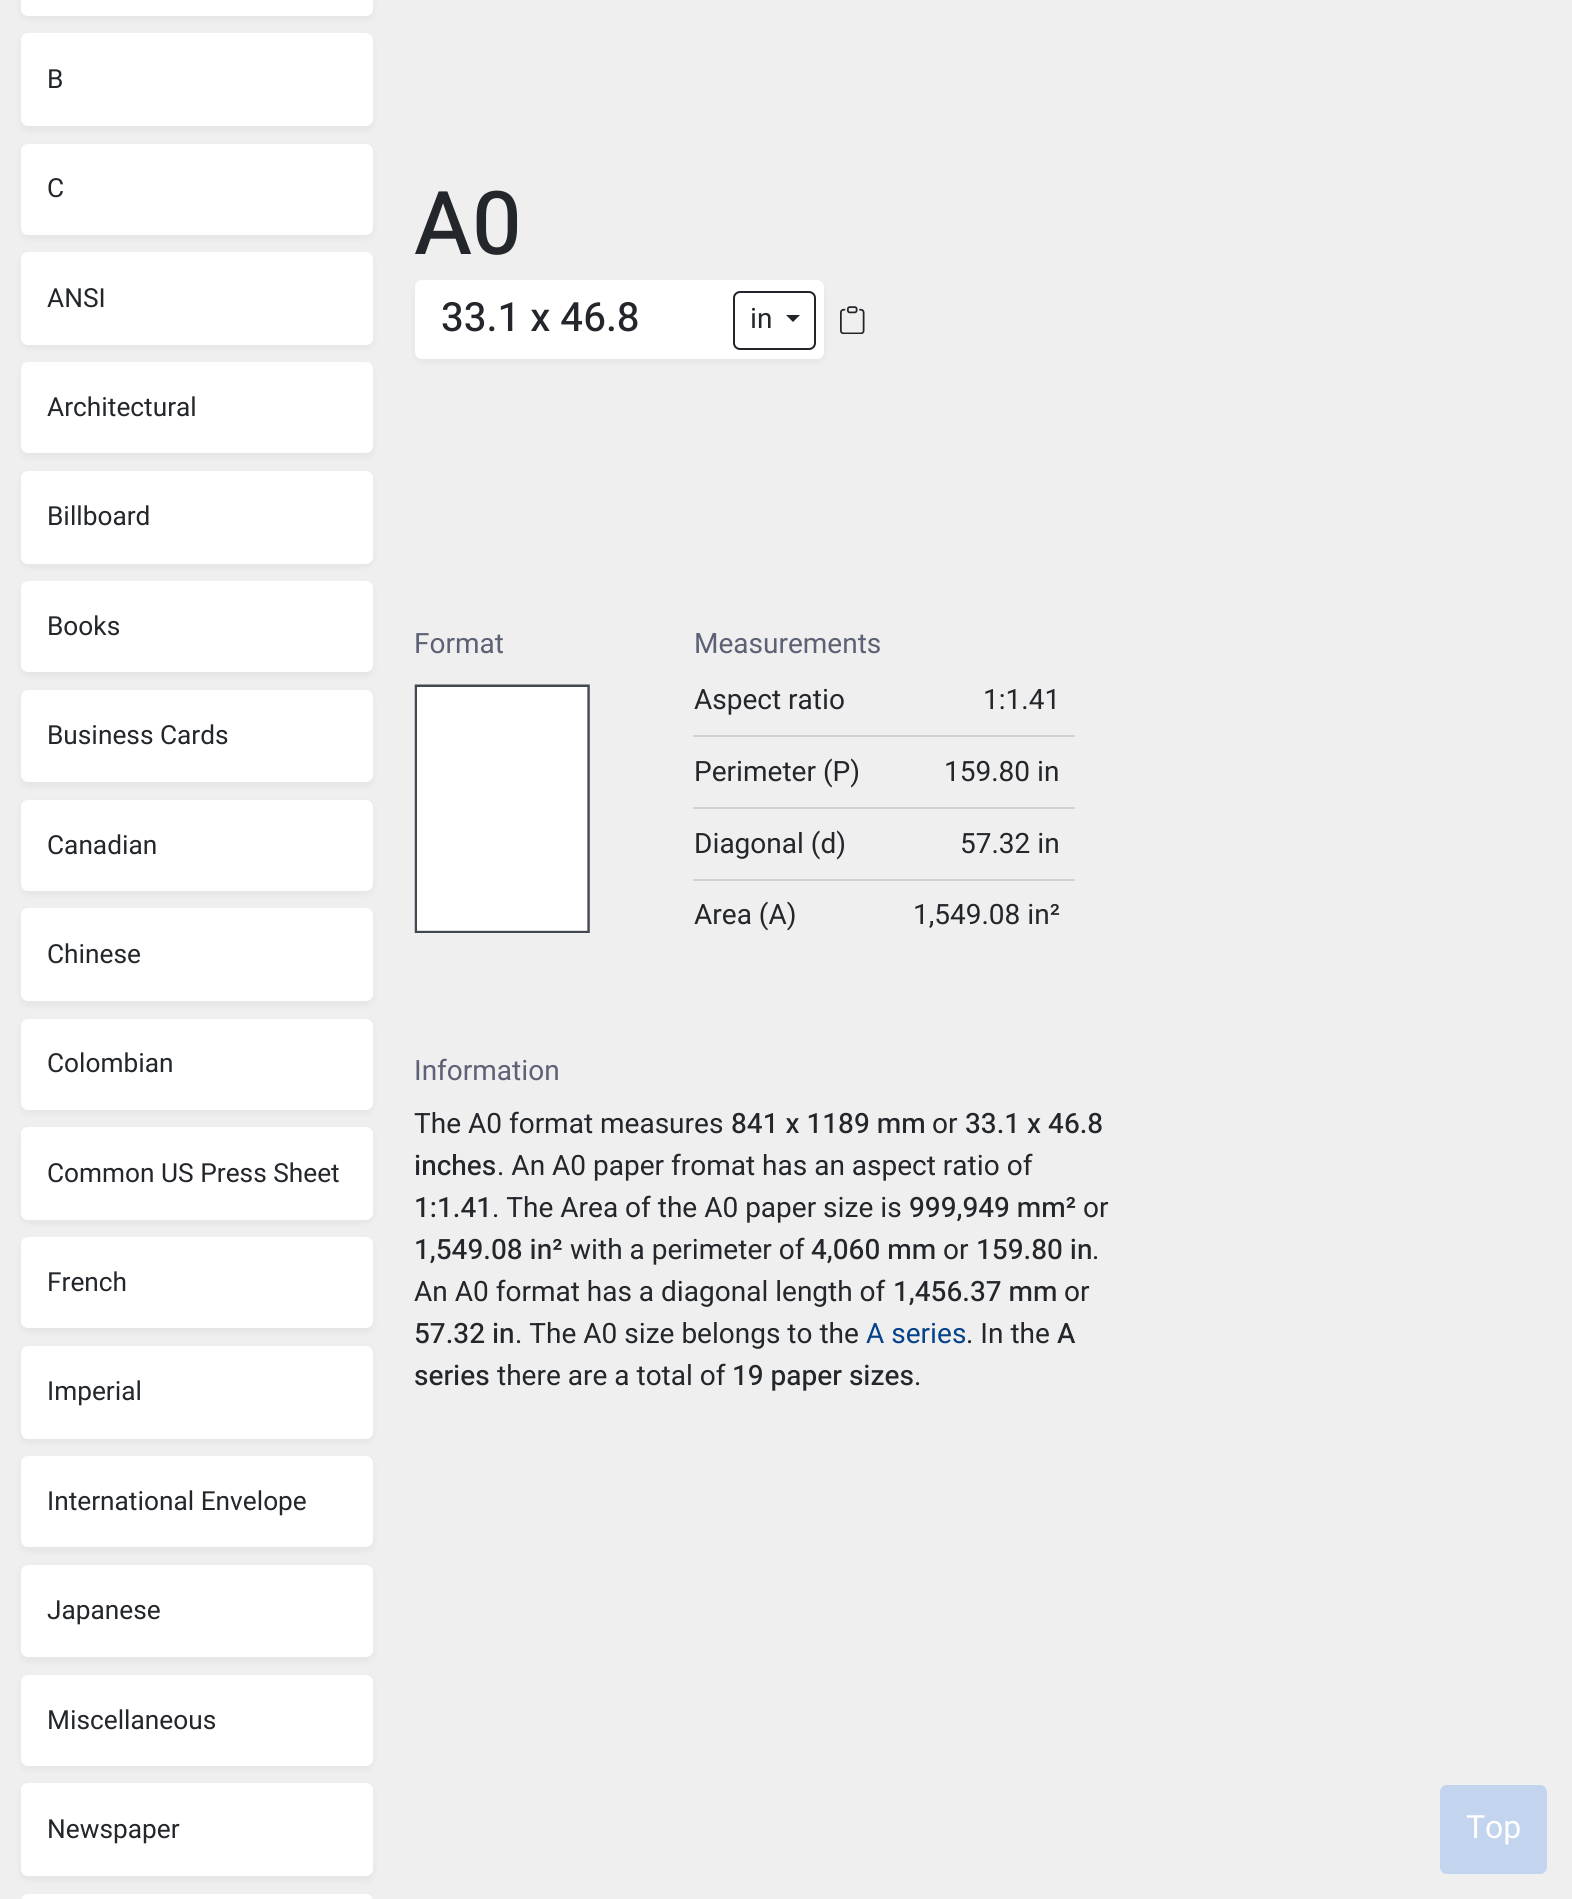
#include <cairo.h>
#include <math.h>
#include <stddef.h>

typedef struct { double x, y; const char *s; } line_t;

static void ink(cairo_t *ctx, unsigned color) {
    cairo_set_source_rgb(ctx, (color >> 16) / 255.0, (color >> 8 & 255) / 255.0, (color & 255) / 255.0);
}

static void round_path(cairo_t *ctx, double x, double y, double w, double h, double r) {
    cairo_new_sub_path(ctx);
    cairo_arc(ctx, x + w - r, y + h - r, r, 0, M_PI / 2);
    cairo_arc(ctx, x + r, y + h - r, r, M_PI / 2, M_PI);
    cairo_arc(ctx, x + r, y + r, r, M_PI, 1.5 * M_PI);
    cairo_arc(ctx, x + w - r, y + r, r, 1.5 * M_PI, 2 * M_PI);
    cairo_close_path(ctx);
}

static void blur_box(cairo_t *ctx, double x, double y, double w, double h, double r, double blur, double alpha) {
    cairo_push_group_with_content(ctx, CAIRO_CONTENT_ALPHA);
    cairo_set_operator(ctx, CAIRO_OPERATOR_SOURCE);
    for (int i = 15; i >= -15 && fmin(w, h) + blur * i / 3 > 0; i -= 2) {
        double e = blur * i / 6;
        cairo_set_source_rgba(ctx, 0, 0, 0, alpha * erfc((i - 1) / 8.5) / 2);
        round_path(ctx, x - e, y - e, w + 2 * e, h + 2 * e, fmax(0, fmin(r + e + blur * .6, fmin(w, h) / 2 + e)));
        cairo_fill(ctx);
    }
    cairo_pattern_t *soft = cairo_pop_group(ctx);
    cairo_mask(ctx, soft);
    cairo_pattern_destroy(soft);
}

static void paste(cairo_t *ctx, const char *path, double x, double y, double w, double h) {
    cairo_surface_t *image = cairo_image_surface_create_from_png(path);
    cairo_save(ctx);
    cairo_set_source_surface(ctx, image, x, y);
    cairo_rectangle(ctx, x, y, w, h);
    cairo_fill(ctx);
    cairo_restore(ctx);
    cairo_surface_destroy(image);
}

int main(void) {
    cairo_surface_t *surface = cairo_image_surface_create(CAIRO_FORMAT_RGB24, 1572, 1899);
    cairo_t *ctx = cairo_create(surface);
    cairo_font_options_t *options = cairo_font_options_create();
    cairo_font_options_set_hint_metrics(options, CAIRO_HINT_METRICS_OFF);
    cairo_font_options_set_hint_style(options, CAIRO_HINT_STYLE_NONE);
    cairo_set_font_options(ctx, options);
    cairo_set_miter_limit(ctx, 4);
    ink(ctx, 0xEFEFEF);
    cairo_paint(ctx);
    ink(ctx, 0x000000);
    blur_box(ctx, 21, -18, 352, 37, 7, 3.5, 0.05);
    ink(ctx, 0xFFFFFF);
    round_path(ctx, 21, -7, 352, 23, 7);
    cairo_fill(ctx);
    ink(ctx, 0x000000);
    blur_box(ctx, 21, 37, 352, 93, 7, 3.5, 0.05);
    ink(ctx, 0xFFFFFF);
    round_path(ctx, 21, 33, 352, 93, 7);
    cairo_fill(ctx);
    cairo_select_font_face(ctx, "Heebo", CAIRO_FONT_SLANT_NORMAL, CAIRO_FONT_WEIGHT_NORMAL);
    cairo_set_font_size(ctx, 26.25);
    ink(ctx, 0x23272B);
    cairo_move_to(ctx, 47, 88);
    cairo_show_text(ctx, "B");
    ink(ctx, 0x000000);
    blur_box(ctx, 21, 147, 352, 91, 7, 3.5, 0.05);
    ink(ctx, 0xFFFFFF);
    round_path(ctx, 21, 144, 352, 91, 7);
    cairo_fill(ctx);
    ink(ctx, 0x23272B);
    cairo_move_to(ctx, 47, 197);
    cairo_show_text(ctx, "C");
    ink(ctx, 0x000000);
    blur_box(ctx, 21, 256, 352, 92, 7, 3.5, 0.05);
    ink(ctx, 0xFFFFFF);
    round_path(ctx, 21, 252, 352, 93, 7);
    cairo_fill(ctx);
    ink(ctx, 0x23272B);
    cairo_move_to(ctx, 47, 307);
    cairo_show_text(ctx, "ANSI");
    ink(ctx, 0x000000);
    blur_box(ctx, 21, 366, 352, 91, 7, 3.5, 0.05);
    ink(ctx, 0xFFFFFF);
    round_path(ctx, 21, 362, 352, 91, 7);
    cairo_fill(ctx);
    ink(ctx, 0x23272B);
    cairo_move_to(ctx, 47, 416);
    cairo_show_text(ctx, "Architectural");
    ink(ctx, 0x000000);
    blur_box(ctx, 21, 474, 352, 93, 7, 3.5, 0.05);
    ink(ctx, 0xFFFFFF);
    round_path(ctx, 21, 471, 352, 93, 7);
    cairo_fill(ctx);
    ink(ctx, 0x23272B);
    cairo_move_to(ctx, 47, 525);
    cairo_show_text(ctx, "Billboard");
    ink(ctx, 0x000000);
    blur_box(ctx, 21, 585, 352, 91, 7, 3.5, 0.05);
    ink(ctx, 0xFFFFFF);
    round_path(ctx, 21, 581, 352, 91, 7);
    cairo_fill(ctx);
    ink(ctx, 0x23272B);
    cairo_move_to(ctx, 47, 635);
    cairo_show_text(ctx, "Books");
    ink(ctx, 0x000000);
    blur_box(ctx, 21, 693, 352, 93, 7, 3.5, 0.05);
    ink(ctx, 0xFFFFFF);
    round_path(ctx, 21, 690, 352, 92, 7);
    cairo_fill(ctx);
    ink(ctx, 0x23272B);
    cairo_move_to(ctx, 47, 744);
    cairo_show_text(ctx, "Business Cards");
    ink(ctx, 0x000000);
    blur_box(ctx, 21, 803, 352, 91, 7, 3.5, 0.05);
    ink(ctx, 0xFFFFFF);
    round_path(ctx, 21, 800, 352, 91, 7);
    cairo_fill(ctx);
    ink(ctx, 0x23272B);
    cairo_move_to(ctx, 47, 854);
    cairo_show_text(ctx, "Canadian");
    ink(ctx, 0x000000);
    blur_box(ctx, 21, 912, 352, 93, 7, 3.5, 0.05);
    ink(ctx, 0xFFFFFF);
    round_path(ctx, 21, 908, 352, 93, 7);
    cairo_fill(ctx);
    ink(ctx, 0x23272B);
    cairo_move_to(ctx, 47, 963);
    cairo_show_text(ctx, "Chinese");
    ink(ctx, 0x000000);
    blur_box(ctx, 21, 1022, 352, 91, 7, 3.5, 0.05);
    ink(ctx, 0xFFFFFF);
    round_path(ctx, 21, 1019, 352, 91, 7);
    cairo_fill(ctx);
    ink(ctx, 0x23272B);
    cairo_move_to(ctx, 47, 1072);
    cairo_show_text(ctx, "Colombian");
    ink(ctx, 0x000000);
    blur_box(ctx, 21, 1131, 352, 92, 7, 3.5, 0.05);
    ink(ctx, 0xFFFFFF);
    round_path(ctx, 21, 1127, 352, 93, 7);
    cairo_fill(ctx);
    ink(ctx, 0x23272B);
    cairo_move_to(ctx, 47, 1182);
    cairo_show_text(ctx, "Common US Press Sheet");
    ink(ctx, 0x000000);
    blur_box(ctx, 21, 1241, 352, 91, 7, 3.5, 0.05);
    ink(ctx, 0xFFFFFF);
    round_path(ctx, 21, 1237, 352, 91, 7);
    cairo_fill(ctx);
    ink(ctx, 0x23272B);
    cairo_move_to(ctx, 47, 1291);
    cairo_show_text(ctx, "French");
    ink(ctx, 0x000000);
    blur_box(ctx, 21, 1349, 352, 93, 7, 3.5, 0.05);
    ink(ctx, 0xFFFFFF);
    round_path(ctx, 21, 1346, 352, 93, 7);
    cairo_fill(ctx);
    ink(ctx, 0x23272B);
    cairo_move_to(ctx, 47, 1400);
    cairo_show_text(ctx, "Imperial");
    ink(ctx, 0x000000);
    blur_box(ctx, 21, 1460, 352, 91, 7, 3.5, 0.05);
    ink(ctx, 0xFFFFFF);
    round_path(ctx, 21, 1456, 352, 91, 7);
    cairo_fill(ctx);
    ink(ctx, 0x23272B);
    cairo_move_to(ctx, 47, 1510);
    cairo_show_text(ctx, "International Envelope");
    ink(ctx, 0x000000);
    blur_box(ctx, 21, 1568, 352, 93, 7, 3.5, 0.05);
    ink(ctx, 0xFFFFFF);
    round_path(ctx, 21, 1565, 352, 92, 7);
    cairo_fill(ctx);
    ink(ctx, 0x23272B);
    cairo_move_to(ctx, 47, 1619);
    cairo_show_text(ctx, "Japanese");
    ink(ctx, 0x000000);
    blur_box(ctx, 21, 1678, 352, 91, 7, 3.5, 0.05);
    ink(ctx, 0xFFFFFF);
    round_path(ctx, 21, 1675, 352, 91, 7);
    cairo_fill(ctx);
    ink(ctx, 0x23272B);
    cairo_move_to(ctx, 47, 1729);
    cairo_show_text(ctx, "Miscellaneous");
    ink(ctx, 0x000000);
    blur_box(ctx, 21, 1787, 352, 93, 7, 3.5, 0.05);
    ink(ctx, 0xFFFFFF);
    round_path(ctx, 21, 1783, 352, 93, 7);
    cairo_fill(ctx);
    ink(ctx, 0x23272B);
    cairo_move_to(ctx, 47, 1838);
    cairo_show_text(ctx, "Newspaper");
    ink(ctx, 0xFFFFFF);
    round_path(ctx, 21, 1894, 352, 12, 7);
    cairo_fill(ctx);
    cairo_select_font_face(ctx, "Heebo Medium", CAIRO_FONT_SLANT_NORMAL, CAIRO_FONT_WEIGHT_NORMAL);
    cairo_set_font_size(ctx, 88);
    ink(ctx, 0x23272B);
    cairo_move_to(ctx, 414, 254);
    cairo_show_text(ctx, "A0");
    ink(ctx, 0x000000);
    blur_box(ctx, 415, 284, 409, 78, 7, 3.5, 0.05);
    ink(ctx, 0xFFFFFF);
    round_path(ctx, 415, 280, 409, 79, 7);
    cairo_fill(ctx);
    cairo_set_font_size(ctx, 40.25);
    ink(ctx, 0x23272B);
    cairo_move_to(ctx, 441, 331);
    cairo_show_text(ctx, "33.1 x 46.8");
    round_path(ctx, 734, 292, 81, 57, 6);
    ink(ctx, 0x212529);
    cairo_stroke(ctx);
    cairo_select_font_face(ctx, "Heebo", CAIRO_FONT_SLANT_NORMAL, CAIRO_FONT_WEIGHT_NORMAL);
    cairo_set_font_size(ctx, 28);
    ink(ctx, 0x23272B);
    cairo_move_to(ctx, 750, 328);
    cairo_show_text(ctx, "in");
    ink(ctx, 0x212529);
    cairo_new_path(ctx);
    cairo_move_to(ctx, 786, 315);
    cairo_line_to(ctx, 800, 315);
    cairo_line_to(ctx, 793, 322);
    cairo_close_path(ctx);
    cairo_fill(ctx);
    paste(ctx, "media/1.png", 840, 306, 25, 28);
    ink(ctx, 0x5D6175);
    cairo_move_to(ctx, 414, 653);
    cairo_show_text(ctx, "Format");
    paste(ctx, "media/2.png", 414, 684, 176, 249);
    cairo_move_to(ctx, 694, 653);
    cairo_show_text(ctx, "Measurements");
    ink(ctx, 0x23272B);
    cairo_move_to(ctx, 694, 709);
    cairo_show_text(ctx, "Aspect ratio");
    ink(ctx, 0xD1D1D1);
    cairo_rectangle(ctx, 693, 735, 382, 2);
    cairo_fill(ctx);
    ink(ctx, 0x23272B);
    cairo_move_to(ctx, 983, 709);
    cairo_show_text(ctx, "1:1.41");
    cairo_move_to(ctx, 694, 781);
    cairo_show_text(ctx, "Perimeter (P)");
    ink(ctx, 0xD1D1D1);
    cairo_rectangle(ctx, 693, 807, 382, 2);
    cairo_fill(ctx);
    ink(ctx, 0x23272B);
    cairo_move_to(ctx, 944, 781);
    cairo_show_text(ctx, "159.80 in");
    cairo_move_to(ctx, 694, 853);
    cairo_show_text(ctx, "Diagonal (d)");
    ink(ctx, 0xD1D1D1);
    cairo_rectangle(ctx, 693, 879, 382, 2);
    cairo_fill(ctx);
    ink(ctx, 0x23272B);
    {
        static const line_t items[] = {
            {960, 853, "57.32 in"},
            {694, 924, "Area (A)"},
            {913, 924, "1,549.08 in²"},
        };
        for (size_t i = 0; i < sizeof items / sizeof *items; i++) {
            cairo_move_to(ctx, items[i].x, items[i].y);
            cairo_show_text(ctx, items[i].s);
        }
    }
    ink(ctx, 0x5D6175);
    cairo_move_to(ctx, 414, 1080);
    cairo_show_text(ctx, "Information");
    ink(ctx, 0x23272B);
    cairo_move_to(ctx, 414, 1133);
    cairo_show_text(ctx, "The A0 format measures");
    cairo_select_font_face(ctx, "Heebo Medium", CAIRO_FONT_SLANT_NORMAL, CAIRO_FONT_WEIGHT_NORMAL);
    cairo_move_to(ctx, 731, 1133);
    cairo_show_text(ctx, "841 x 1189 mm");
    cairo_select_font_face(ctx, "Heebo", CAIRO_FONT_SLANT_NORMAL, CAIRO_FONT_WEIGHT_NORMAL);
    cairo_move_to(ctx, 932, 1133);
    cairo_show_text(ctx, "or");
    cairo_select_font_face(ctx, "Heebo Medium", CAIRO_FONT_SLANT_NORMAL, CAIRO_FONT_WEIGHT_NORMAL);
    cairo_move_to(ctx, 965, 1133);
    cairo_show_text(ctx, "33.1 x 46.8");
    cairo_move_to(ctx, 414, 1175);
    cairo_show_text(ctx, "inches");
    cairo_select_font_face(ctx, "Heebo", CAIRO_FONT_SLANT_NORMAL, CAIRO_FONT_WEIGHT_NORMAL);
    cairo_move_to(ctx, 497, 1175);
    cairo_show_text(ctx, ". An A0 paper fromat has an aspect ratio of");
    cairo_select_font_face(ctx, "Heebo Medium", CAIRO_FONT_SLANT_NORMAL, CAIRO_FONT_WEIGHT_NORMAL);
    cairo_move_to(ctx, 414, 1217);
    cairo_show_text(ctx, "1:1.41");
    cairo_select_font_face(ctx, "Heebo", CAIRO_FONT_SLANT_NORMAL, CAIRO_FONT_WEIGHT_NORMAL);
    cairo_move_to(ctx, 492, 1217);
    cairo_show_text(ctx, ". The Area of the A0 paper size is");
    cairo_select_font_face(ctx, "Heebo Medium", CAIRO_FONT_SLANT_NORMAL, CAIRO_FONT_WEIGHT_NORMAL);
    cairo_move_to(ctx, 909, 1217);
    cairo_show_text(ctx, "999,949 mm²");
    cairo_select_font_face(ctx, "Heebo", CAIRO_FONT_SLANT_NORMAL, CAIRO_FONT_WEIGHT_NORMAL);
    cairo_move_to(ctx, 1083, 1217);
    cairo_show_text(ctx, "or");
    cairo_select_font_face(ctx, "Heebo Medium", CAIRO_FONT_SLANT_NORMAL, CAIRO_FONT_WEIGHT_NORMAL);
    cairo_move_to(ctx, 414, 1259);
    cairo_show_text(ctx, "1,549.08 in²");
    cairo_select_font_face(ctx, "Heebo", CAIRO_FONT_SLANT_NORMAL, CAIRO_FONT_WEIGHT_NORMAL);
    cairo_move_to(ctx, 570, 1259);
    cairo_show_text(ctx, "with a perimeter of");
    cairo_select_font_face(ctx, "Heebo Medium", CAIRO_FONT_SLANT_NORMAL, CAIRO_FONT_WEIGHT_NORMAL);
    cairo_move_to(ctx, 811, 1259);
    cairo_show_text(ctx, "4,060 mm");
    cairo_select_font_face(ctx, "Heebo", CAIRO_FONT_SLANT_NORMAL, CAIRO_FONT_WEIGHT_NORMAL);
    cairo_move_to(ctx, 943, 1259);
    cairo_show_text(ctx, "or");
    cairo_select_font_face(ctx, "Heebo Medium", CAIRO_FONT_SLANT_NORMAL, CAIRO_FONT_WEIGHT_NORMAL);
    cairo_move_to(ctx, 976, 1259);
    cairo_show_text(ctx, "159.80 in");
    cairo_select_font_face(ctx, "Heebo", CAIRO_FONT_SLANT_NORMAL, CAIRO_FONT_WEIGHT_NORMAL);
    cairo_move_to(ctx, 1092, 1259);
    cairo_show_text(ctx, ".");
    cairo_move_to(ctx, 414, 1301);
    cairo_show_text(ctx, "An A0 format has a diagonal length of");
    cairo_select_font_face(ctx, "Heebo Medium", CAIRO_FONT_SLANT_NORMAL, CAIRO_FONT_WEIGHT_NORMAL);
    cairo_move_to(ctx, 893, 1301);
    cairo_show_text(ctx, "1,456.37 mm");
    cairo_select_font_face(ctx, "Heebo", CAIRO_FONT_SLANT_NORMAL, CAIRO_FONT_WEIGHT_NORMAL);
    cairo_move_to(ctx, 1064, 1301);
    cairo_show_text(ctx, "or");
    cairo_select_font_face(ctx, "Heebo Medium", CAIRO_FONT_SLANT_NORMAL, CAIRO_FONT_WEIGHT_NORMAL);
    cairo_move_to(ctx, 414, 1343);
    cairo_show_text(ctx, "57.32 in");
    cairo_select_font_face(ctx, "Heebo", CAIRO_FONT_SLANT_NORMAL, CAIRO_FONT_WEIGHT_NORMAL);
    cairo_move_to(ctx, 515, 1343);
    cairo_show_text(ctx, ". The A0 size belongs to the");
    ink(ctx, 0x044389);
    cairo_move_to(ctx, 866, 1343);
    cairo_show_text(ctx, "A series");
    ink(ctx, 0x23272B);
    cairo_move_to(ctx, 966, 1343);
    cairo_show_text(ctx, ". In the");
    cairo_select_font_face(ctx, "Heebo Medium", CAIRO_FONT_SLANT_NORMAL, CAIRO_FONT_WEIGHT_NORMAL);
    cairo_move_to(ctx, 1057, 1343);
    cairo_show_text(ctx, "A");
    cairo_move_to(ctx, 414, 1385);
    cairo_show_text(ctx, "series");
    cairo_select_font_face(ctx, "Heebo", CAIRO_FONT_SLANT_NORMAL, CAIRO_FONT_WEIGHT_NORMAL);
    cairo_move_to(ctx, 497, 1385);
    cairo_show_text(ctx, "there are a total of");
    cairo_select_font_face(ctx, "Heebo Medium", CAIRO_FONT_SLANT_NORMAL, CAIRO_FONT_WEIGHT_NORMAL);
    cairo_move_to(ctx, 732, 1385);
    cairo_show_text(ctx, "19 paper sizes");
    cairo_select_font_face(ctx, "Heebo", CAIRO_FONT_SLANT_NORMAL, CAIRO_FONT_WEIGHT_NORMAL);
    cairo_move_to(ctx, 914, 1385);
    cairo_show_text(ctx, ".");
    ink(ctx, 0xC2D4EE);
    round_path(ctx, 1440, 1785, 107, 89, 7);
    cairo_fill(ctx);
    cairo_set_font_size(ctx, 32);
    ink(ctx, 0xFFFFFF);
    cairo_move_to(ctx, 1466, 1838);
    cairo_show_text(ctx, "Top");
    cairo_surface_write_to_png(surface, "image.png");
    cairo_font_options_destroy(options);
    cairo_destroy(ctx);
    cairo_surface_destroy(surface);
    return 0;
}
